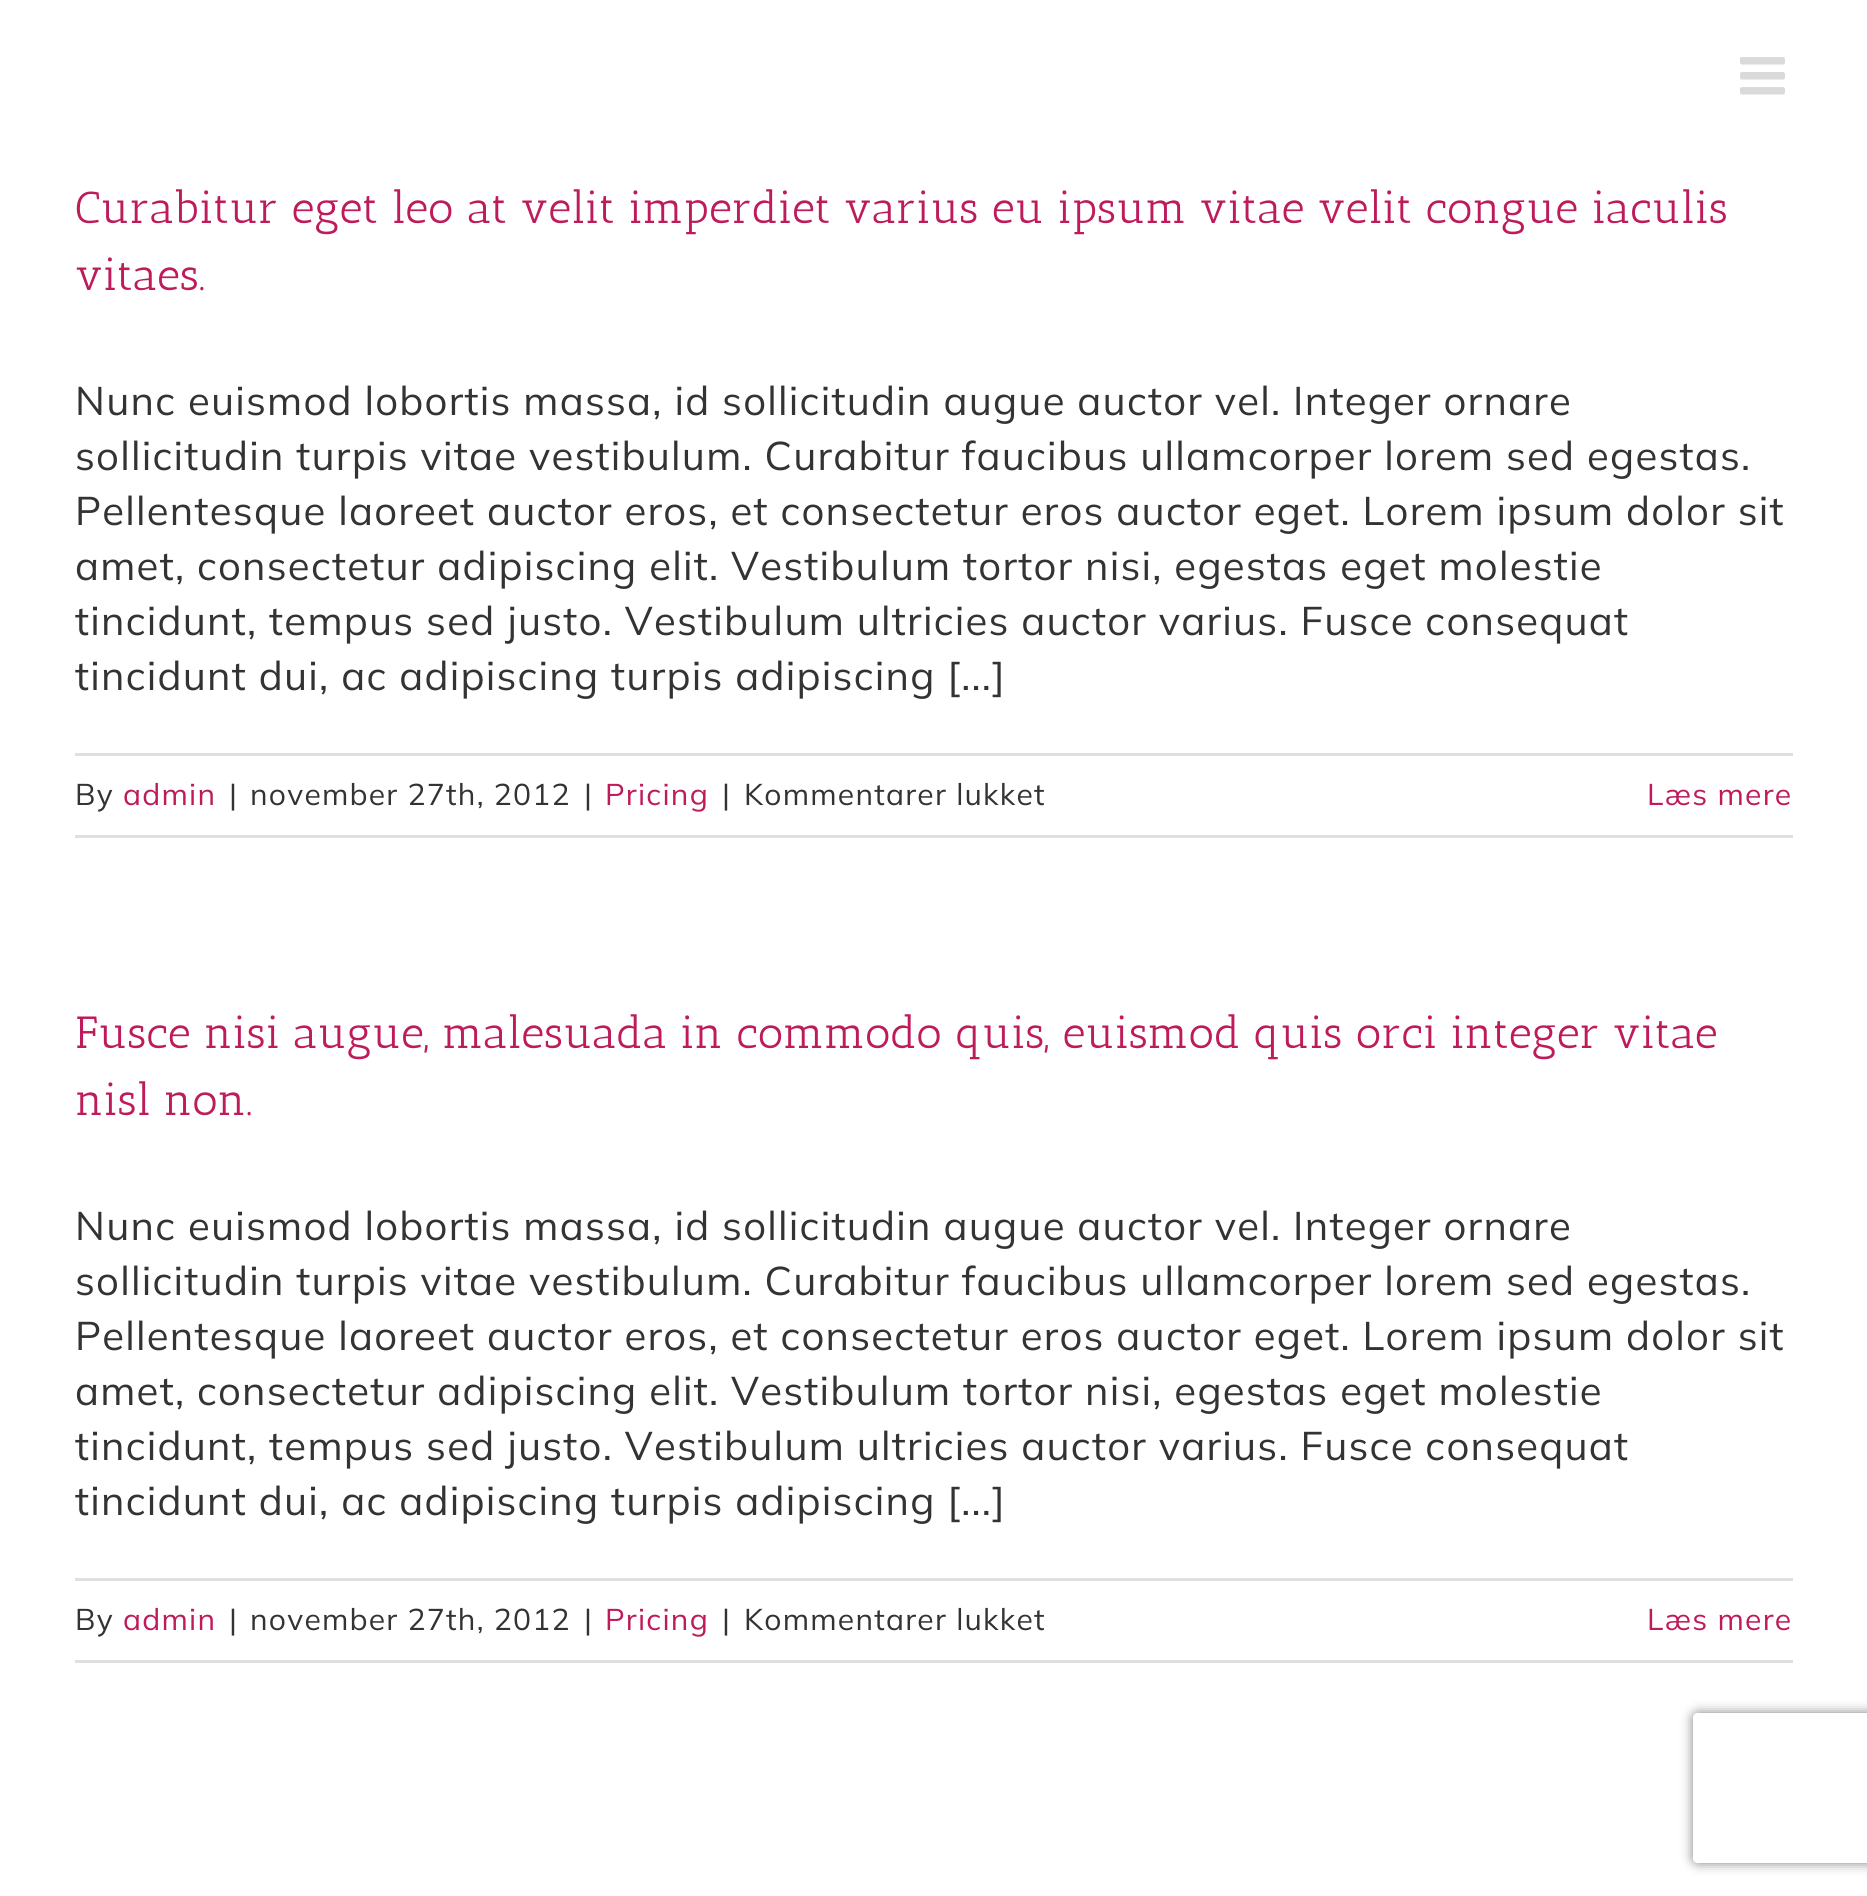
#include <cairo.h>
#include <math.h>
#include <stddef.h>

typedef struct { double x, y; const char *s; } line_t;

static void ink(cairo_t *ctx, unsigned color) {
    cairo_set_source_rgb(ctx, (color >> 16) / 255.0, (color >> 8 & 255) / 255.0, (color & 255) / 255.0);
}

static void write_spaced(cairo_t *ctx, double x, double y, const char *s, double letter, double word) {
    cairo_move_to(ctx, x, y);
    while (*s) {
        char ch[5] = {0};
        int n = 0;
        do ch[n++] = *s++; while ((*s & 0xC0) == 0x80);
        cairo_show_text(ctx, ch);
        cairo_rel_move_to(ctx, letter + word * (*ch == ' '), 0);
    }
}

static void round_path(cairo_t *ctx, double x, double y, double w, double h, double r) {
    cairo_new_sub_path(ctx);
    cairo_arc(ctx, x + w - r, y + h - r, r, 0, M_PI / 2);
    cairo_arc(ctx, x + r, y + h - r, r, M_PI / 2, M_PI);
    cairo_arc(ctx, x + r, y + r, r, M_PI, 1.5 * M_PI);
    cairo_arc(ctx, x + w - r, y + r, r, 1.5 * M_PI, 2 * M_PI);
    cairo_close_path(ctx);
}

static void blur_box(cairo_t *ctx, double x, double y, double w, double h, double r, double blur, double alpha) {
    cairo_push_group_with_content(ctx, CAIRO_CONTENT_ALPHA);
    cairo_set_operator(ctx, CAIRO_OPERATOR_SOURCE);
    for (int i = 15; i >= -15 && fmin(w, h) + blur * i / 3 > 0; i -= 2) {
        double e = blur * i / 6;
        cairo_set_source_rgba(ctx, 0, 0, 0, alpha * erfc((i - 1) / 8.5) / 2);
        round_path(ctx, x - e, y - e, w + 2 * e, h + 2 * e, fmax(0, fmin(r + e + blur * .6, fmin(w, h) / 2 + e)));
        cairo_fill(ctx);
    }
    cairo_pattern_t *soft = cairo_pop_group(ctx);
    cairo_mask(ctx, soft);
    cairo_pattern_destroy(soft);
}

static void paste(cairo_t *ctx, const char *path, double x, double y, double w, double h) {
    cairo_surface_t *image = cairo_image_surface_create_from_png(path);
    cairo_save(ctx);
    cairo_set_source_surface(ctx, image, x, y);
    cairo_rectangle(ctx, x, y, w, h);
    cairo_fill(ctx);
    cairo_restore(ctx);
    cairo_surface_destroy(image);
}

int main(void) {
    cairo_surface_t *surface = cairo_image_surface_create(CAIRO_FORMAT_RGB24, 1867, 1896);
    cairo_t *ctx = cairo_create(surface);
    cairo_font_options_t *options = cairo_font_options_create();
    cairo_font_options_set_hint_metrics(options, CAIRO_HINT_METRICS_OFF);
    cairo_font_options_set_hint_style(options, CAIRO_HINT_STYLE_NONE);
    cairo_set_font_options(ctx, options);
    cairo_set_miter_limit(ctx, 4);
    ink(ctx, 0xFFFFFF);
    cairo_paint(ctx);
    paste(ctx, "media/1.png", 1740, 57, 45, 38);
    cairo_select_font_face(ctx, "Antic Slab", CAIRO_FONT_SLANT_NORMAL, CAIRO_FONT_WEIGHT_NORMAL);
    cairo_set_font_size(ctx, 45);
    ink(ctx, 0xBE1B5B);
    cairo_move_to(ctx, 75, 223);
    cairo_show_text(ctx, "Curabitur eget leo at velit imperdiet varius eu ipsum vitae velit congue iaculis");
    cairo_move_to(ctx, 75, 290);
    cairo_show_text(ctx, "vitaes.");
    cairo_select_font_face(ctx, "Mulish", CAIRO_FONT_SLANT_NORMAL, CAIRO_FONT_WEIGHT_NORMAL);
    cairo_set_font_size(ctx, 40);
    ink(ctx, 0x333333);
    {
        static const line_t items[] = {
            {75, 415, "Nunc euismod lobortis massa, id sollicitudin augue auctor vel. Integer ornare"},
            {75, 470, "sollicitudin turpis vitae vestibulum. Curabitur faucibus ullamcorper lorem sed egestas."},
            {75, 525, "Pellentesque laoreet auctor eros, et consectetur eros auctor eget. Lorem ipsum dolor sit"},
            {75, 580, "amet, consectetur adipiscing elit. Vestibulum tortor nisi, egestas eget molestie"},
            {75, 635, "tincidunt, tempus sed justo. Vestibulum ultricies auctor varius. Fusce consequat"},
            {75, 690, "tincidunt dui, ac adipiscing turpis adipiscing [...]"},
        };
        for (size_t i = 0; i < sizeof items / sizeof *items; i++) {
            write_spaced(ctx, items[i].x, items[i].y, items[i].s, 1.25, 0);
        }
    }
    ink(ctx, 0xE0DEDE);
    cairo_rectangle(ctx, 75, 753, 1718, 3);
    cairo_fill(ctx);
    cairo_rectangle(ctx, 75, 835, 1718, 3);
    cairo_fill(ctx);
    cairo_set_font_size(ctx, 30);
    ink(ctx, 0x333333);
    write_spaced(ctx, 75, 805, "By", 1.25, 0);
    ink(ctx, 0xBE1B5B);
    write_spaced(ctx, 123, 805, "admin", 1.25, 0);
    ink(ctx, 0x333333);
    {
        static const line_t items[] = {
            {229, 805, "|"},
            {250, 805, "november 27th, 2012"},
            {584, 805, "|"},
        };
        for (size_t i = 0; i < sizeof items / sizeof *items; i++) {
            write_spaced(ctx, items[i].x, items[i].y, items[i].s, 1.25, 0);
        }
    }
    ink(ctx, 0xBE1B5B);
    write_spaced(ctx, 605, 805, "Pricing", 1.25, 0);
    ink(ctx, 0x333333);
    write_spaced(ctx, 722, 805, "|", 1.25, 0);
    write_spaced(ctx, 744, 805, "Kommentarer lukket", 1.25, 0);
    ink(ctx, 0xBE1B5B);
    write_spaced(ctx, 1647, 805, "Læs mere", 1.25, 0);
    cairo_select_font_face(ctx, "Antic Slab", CAIRO_FONT_SLANT_NORMAL, CAIRO_FONT_WEIGHT_NORMAL);
    cairo_set_font_size(ctx, 45);
    cairo_move_to(ctx, 75, 1048);
    cairo_show_text(ctx, "Fusce nisi augue, malesuada in commodo quis, euismod quis orci integer vitae");
    cairo_move_to(ctx, 75, 1115);
    cairo_show_text(ctx, "nisl non.");
    cairo_select_font_face(ctx, "Mulish", CAIRO_FONT_SLANT_NORMAL, CAIRO_FONT_WEIGHT_NORMAL);
    cairo_set_font_size(ctx, 40);
    ink(ctx, 0x333333);
    {
        static const line_t items[] = {
            {75, 1240, "Nunc euismod lobortis massa, id sollicitudin augue auctor vel. Integer ornare"},
            {75, 1295, "sollicitudin turpis vitae vestibulum. Curabitur faucibus ullamcorper lorem sed egestas."},
            {75, 1350, "Pellentesque laoreet auctor eros, et consectetur eros auctor eget. Lorem ipsum dolor sit"},
            {75, 1405, "amet, consectetur adipiscing elit. Vestibulum tortor nisi, egestas eget molestie"},
            {75, 1460, "tincidunt, tempus sed justo. Vestibulum ultricies auctor varius. Fusce consequat"},
            {75, 1515, "tincidunt dui, ac adipiscing turpis adipiscing [...]"},
        };
        for (size_t i = 0; i < sizeof items / sizeof *items; i++) {
            write_spaced(ctx, items[i].x, items[i].y, items[i].s, 1.25, 0);
        }
    }
    ink(ctx, 0xE0DEDE);
    cairo_rectangle(ctx, 75, 1578, 1718, 3);
    cairo_fill(ctx);
    cairo_rectangle(ctx, 75, 1660, 1718, 3);
    cairo_fill(ctx);
    cairo_set_font_size(ctx, 30);
    ink(ctx, 0x333333);
    write_spaced(ctx, 75, 1630, "By", 1.25, 0);
    ink(ctx, 0xBE1B5B);
    write_spaced(ctx, 123, 1630, "admin", 1.25, 0);
    ink(ctx, 0x333333);
    {
        static const line_t items[] = {
            {229, 1630, "|"},
            {250, 1630, "november 27th, 2012"},
            {584, 1630, "|"},
        };
        for (size_t i = 0; i < sizeof items / sizeof *items; i++) {
            write_spaced(ctx, items[i].x, items[i].y, items[i].s, 1.25, 0);
        }
    }
    ink(ctx, 0xBE1B5B);
    write_spaced(ctx, 605, 1630, "Pricing", 1.25, 0);
    ink(ctx, 0x333333);
    write_spaced(ctx, 722, 1630, "|", 1.25, 0);
    write_spaced(ctx, 744, 1630, "Kommentarer lukket", 1.25, 0);
    ink(ctx, 0xBE1B5B);
    write_spaced(ctx, 1647, 1630, "Læs mere", 1.25, 0);
    cairo_save(ctx);
    cairo_set_fill_rule(ctx, CAIRO_FILL_RULE_EVEN_ODD);
    cairo_new_path(ctx);
    cairo_move_to(ctx, 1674, 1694);
    cairo_line_to(ctx, 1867, 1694);
    cairo_line_to(ctx, 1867, 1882);
    cairo_line_to(ctx, 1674, 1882);
    cairo_close_path(ctx);
    cairo_move_to(ctx, 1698, 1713);
    cairo_line_to(ctx, 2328, 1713);
    cairo_curve_to(ctx, 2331, 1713, 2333, 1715, 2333, 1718);
    cairo_line_to(ctx, 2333, 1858);
    cairo_curve_to(ctx, 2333, 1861, 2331, 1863, 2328, 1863);
    cairo_line_to(ctx, 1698, 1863);
    cairo_curve_to(ctx, 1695, 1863, 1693, 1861, 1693, 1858);
    cairo_line_to(ctx, 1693, 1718);
    cairo_curve_to(ctx, 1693, 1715, 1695, 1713, 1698, 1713);
    cairo_close_path(ctx);
    cairo_clip(ctx);
    ink(ctx, 0x808080);
    blur_box(ctx, 1693, 1713, 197, 150, 5, 6, 1);
    cairo_restore(ctx);
    cairo_surface_write_to_png(surface, "image.png");
    cairo_font_options_destroy(options);
    cairo_destroy(ctx);
    cairo_surface_destroy(surface);
    return 0;
}
